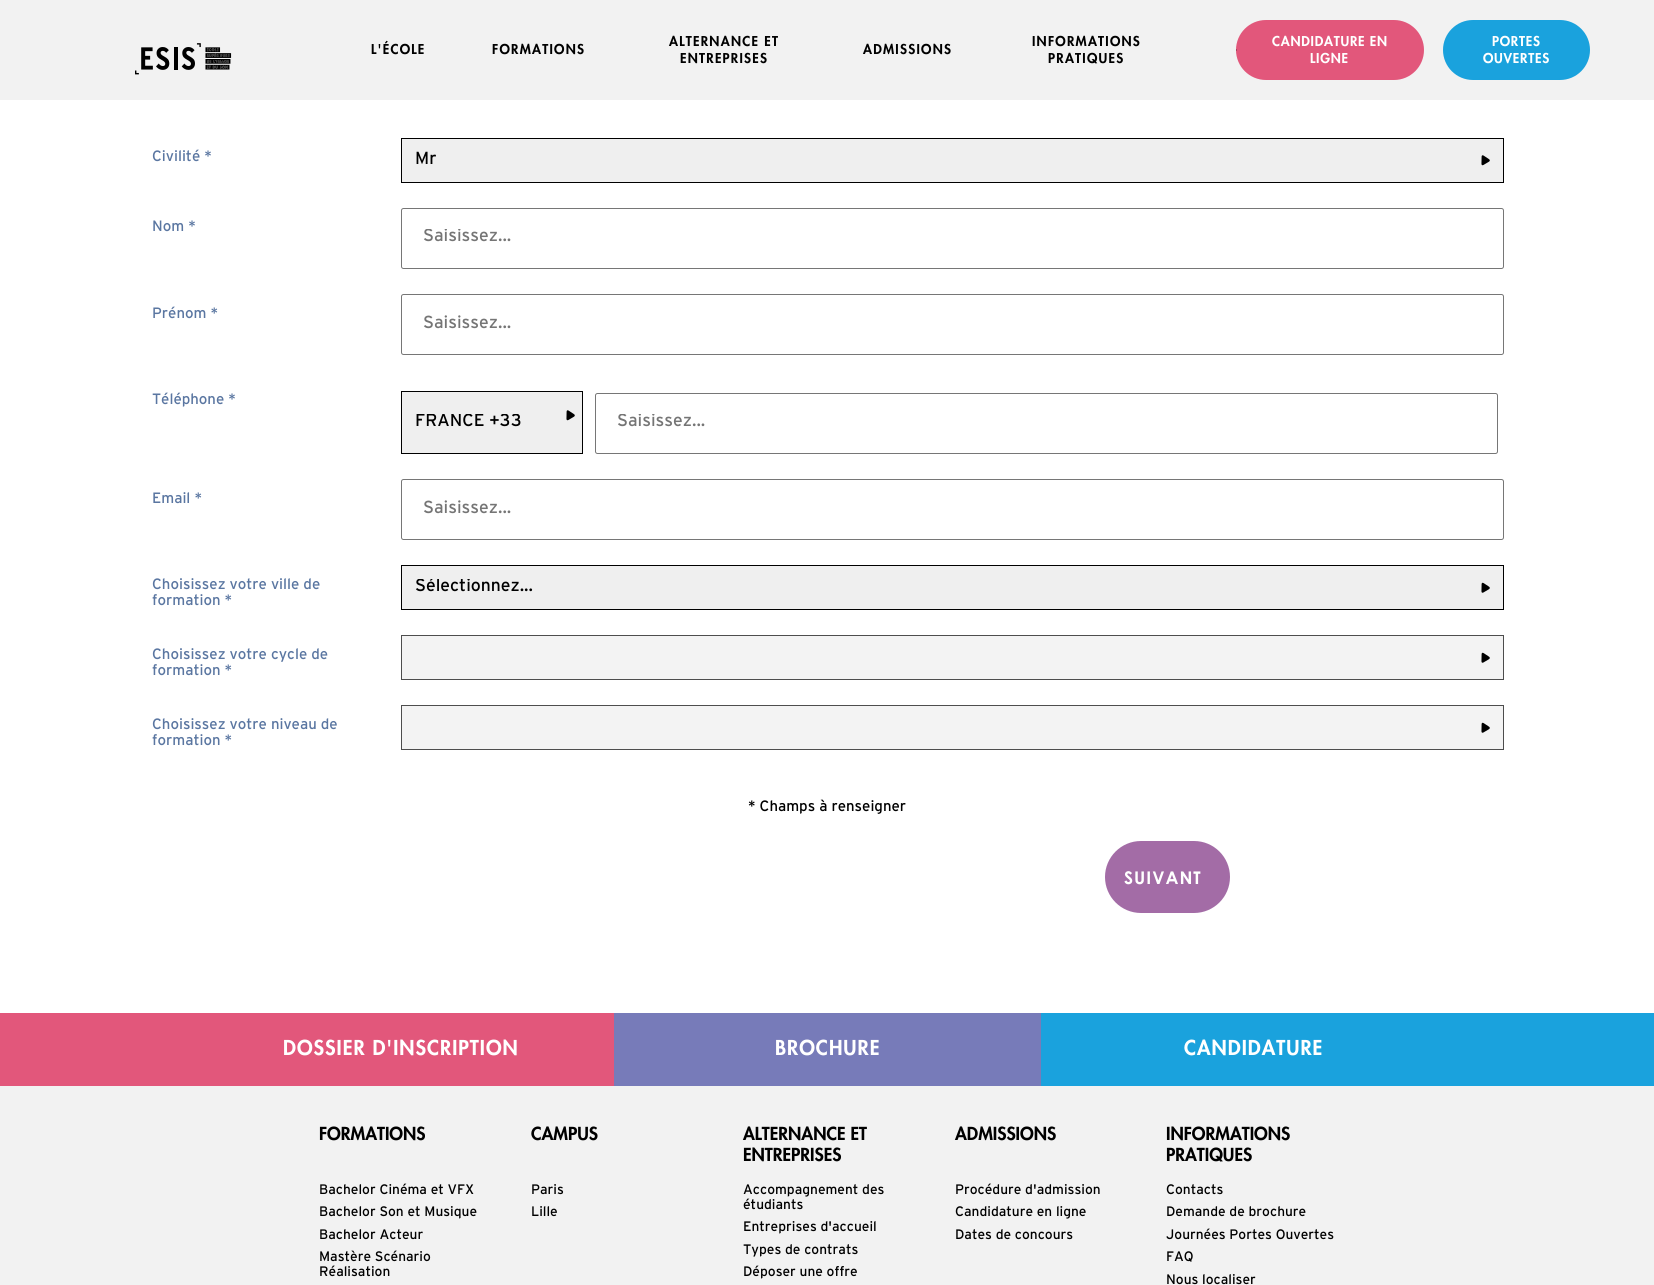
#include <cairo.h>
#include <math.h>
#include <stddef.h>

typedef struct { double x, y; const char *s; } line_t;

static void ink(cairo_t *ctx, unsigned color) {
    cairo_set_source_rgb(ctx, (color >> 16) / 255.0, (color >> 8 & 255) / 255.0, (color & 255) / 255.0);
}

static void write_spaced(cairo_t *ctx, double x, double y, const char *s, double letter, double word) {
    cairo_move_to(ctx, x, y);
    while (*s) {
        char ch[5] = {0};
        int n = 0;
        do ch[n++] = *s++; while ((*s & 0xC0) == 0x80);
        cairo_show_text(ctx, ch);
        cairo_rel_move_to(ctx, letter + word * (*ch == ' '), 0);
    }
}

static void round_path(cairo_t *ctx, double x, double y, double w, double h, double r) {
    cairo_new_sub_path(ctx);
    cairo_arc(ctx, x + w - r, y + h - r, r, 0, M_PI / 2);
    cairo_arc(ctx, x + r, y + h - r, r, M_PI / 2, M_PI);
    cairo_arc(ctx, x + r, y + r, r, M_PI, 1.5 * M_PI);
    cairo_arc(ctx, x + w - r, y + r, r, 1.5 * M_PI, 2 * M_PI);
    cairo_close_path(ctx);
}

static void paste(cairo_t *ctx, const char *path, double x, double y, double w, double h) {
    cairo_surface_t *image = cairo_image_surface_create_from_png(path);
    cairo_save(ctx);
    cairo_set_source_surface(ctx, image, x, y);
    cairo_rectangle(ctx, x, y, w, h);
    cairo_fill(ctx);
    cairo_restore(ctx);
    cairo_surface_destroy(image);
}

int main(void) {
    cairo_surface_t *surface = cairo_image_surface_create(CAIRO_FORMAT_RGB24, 1654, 1285);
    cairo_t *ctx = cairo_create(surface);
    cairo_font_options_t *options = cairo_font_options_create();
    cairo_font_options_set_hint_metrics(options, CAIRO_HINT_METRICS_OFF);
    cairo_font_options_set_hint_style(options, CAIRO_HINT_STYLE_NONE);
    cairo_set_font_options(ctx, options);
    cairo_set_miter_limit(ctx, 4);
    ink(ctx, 0xFFFFFF);
    cairo_paint(ctx);
    ink(ctx, 0xF2F2F2);
    cairo_rectangle(ctx, 0, 0, 1654, 100);
    cairo_fill(ctx);
    paste(ctx, "media/1.png", 135, 43, 97, 32);
    cairo_select_font_face(ctx, "Futura Black", CAIRO_FONT_SLANT_NORMAL, CAIRO_FONT_WEIGHT_NORMAL);
    cairo_set_font_size(ctx, 13.25);
    ink(ctx, 0x000000);
    {
        static const line_t items[] = {
            {371, 54, "L'ÉCOLE"},
            {492, 54, "FORMATIONS"},
            {669, 46, "ALTERNANCE ET"},
            {680, 63, "ENTREPRISES"},
            {863, 54, "ADMISSIONS"},
            {1032, 46, "INFORMATIONS"},
            {1048, 63, "PRATIQUES"},
        };
        for (size_t i = 0; i < sizeof items / sizeof *items; i++) {
            write_spaced(ctx, items[i].x, items[i].y, items[i].s, 1.25, 0);
        }
    }
    ink(ctx, 0xE2577B);
    round_path(ctx, 1236, 20, 188, 60, 30);
    cairo_fill(ctx);
    ink(ctx, 0xFFFFFF);
    write_spaced(ctx, 1272, 46, "CANDIDATURE EN", 0.75, 0);
    ink(ctx, 0x000000);
    cairo_new_path(ctx);
    cairo_move_to(ctx, 1236, 49);
    cairo_line_to(ctx, 1236.5, 50);
    cairo_line_to(ctx, 1236, 51);
    cairo_close_path(ctx);
    cairo_fill(ctx);
    ink(ctx, 0xFFFFFF);
    write_spaced(ctx, 1310, 63, "LIGNE", 0.75, 0);
    ink(ctx, 0x1AA2DD);
    round_path(ctx, 1443, 20, 147, 60, 30);
    cairo_fill(ctx);
    ink(ctx, 0xFFFFFF);
    write_spaced(ctx, 1492, 46, "PORTES", 0.75, 0);
    write_spaced(ctx, 1483, 63, "OUVERTES", 0.75, 0);
    cairo_select_font_face(ctx, "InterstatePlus", CAIRO_FONT_SLANT_NORMAL, CAIRO_FONT_WEIGHT_NORMAL);
    cairo_set_font_size(ctx, 15);
    ink(ctx, 0x5A76A1);
    cairo_move_to(ctx, 152, 161);
    cairo_show_text(ctx, "Civilité *");
    ink(ctx, 0xEFEFEF);
    cairo_rectangle(ctx, 401.5, 138.5, 1102, 44);
    cairo_fill_preserve(ctx);
    ink(ctx, 0x000000);
    cairo_set_line_width(ctx, 1);
    cairo_stroke(ctx);
    cairo_set_font_size(ctx, 17.5);
    cairo_move_to(ctx, 415, 164);
    cairo_show_text(ctx, "Mr");
    paste(ctx, "media/2.png", 1481, 155, 9, 11);
    cairo_set_font_size(ctx, 15);
    ink(ctx, 0x5A76A1);
    cairo_move_to(ctx, 152, 231);
    cairo_show_text(ctx, "Nom *");
    round_path(ctx, 401.5, 208.5, 1102, 60, 2);
    ink(ctx, 0x767676);
    cairo_stroke(ctx);
    cairo_save(ctx);
    cairo_rectangle(ctx, 423, 229, 1060, 19);
    cairo_clip(ctx);
    cairo_set_font_size(ctx, 17.5);
    ink(ctx, 0x757575);
    cairo_move_to(ctx, 423, 241);
    cairo_show_text(ctx, "Saisissez...");
    cairo_restore(ctx);
    ink(ctx, 0x5A76A1);
    cairo_move_to(ctx, 152, 318);
    cairo_show_text(ctx, "Prénom *");
    round_path(ctx, 401.5, 294.5, 1102, 60, 2);
    ink(ctx, 0x767676);
    cairo_stroke(ctx);
    cairo_set_font_size(ctx, 17.5);
    ink(ctx, 0x757575);
    cairo_move_to(ctx, 423, 328);
    cairo_show_text(ctx, "Saisissez...");
    cairo_set_font_size(ctx, 15);
    ink(ctx, 0x5A76A1);
    cairo_move_to(ctx, 152, 404);
    cairo_show_text(ctx, "Téléphone *");
    ink(ctx, 0xEFEFEF);
    cairo_rectangle(ctx, 401.5, 391.5, 181, 62);
    cairo_fill_preserve(ctx);
    ink(ctx, 0x000000);
    cairo_stroke(ctx);
    cairo_save(ctx);
    cairo_rectangle(ctx, 415, 414, 141, 17);
    cairo_clip(ctx);
    cairo_set_font_size(ctx, 17.5);
    cairo_move_to(ctx, 415, 426);
    cairo_show_text(ctx, "FRANCE +33");
    cairo_restore(ctx);
    paste(ctx, "media/2.png", 566, 410, 9, 11);
    round_path(ctx, 595.5, 393.5, 902, 60, 2);
    ink(ctx, 0x767676);
    cairo_stroke(ctx);
    cairo_save(ctx);
    cairo_rectangle(ctx, 616, 414, 860, 19);
    cairo_clip(ctx);
    cairo_set_font_size(ctx, 17.5);
    ink(ctx, 0x757575);
    cairo_move_to(ctx, 617, 426);
    cairo_show_text(ctx, "Saisissez...");
    cairo_restore(ctx);
    ink(ctx, 0x5A76A1);
    cairo_move_to(ctx, 152, 503);
    cairo_show_text(ctx, "Email *");
    round_path(ctx, 401.5, 479.5, 1102, 60, 2);
    ink(ctx, 0x767676);
    cairo_stroke(ctx);
    cairo_set_font_size(ctx, 17.5);
    ink(ctx, 0x757575);
    cairo_move_to(ctx, 423, 513);
    cairo_show_text(ctx, "Saisissez...");
    cairo_set_font_size(ctx, 15);
    ink(ctx, 0x5A76A1);
    cairo_move_to(ctx, 152, 589);
    cairo_show_text(ctx, "Choisissez votre ville de");
    cairo_move_to(ctx, 152, 605);
    cairo_show_text(ctx, "formation *");
    ink(ctx, 0xEFEFEF);
    cairo_rectangle(ctx, 401.5, 565.5, 1102, 44);
    cairo_fill_preserve(ctx);
    ink(ctx, 0x000000);
    cairo_stroke(ctx);
    cairo_save(ctx);
    cairo_rectangle(ctx, 415, 579, 1075, 17);
    cairo_clip(ctx);
    cairo_set_font_size(ctx, 17.5);
    cairo_move_to(ctx, 415, 591);
    cairo_show_text(ctx, "Sélectionnez...");
    cairo_restore(ctx);
    paste(ctx, "media/3.png", 1481, 582, 9, 11);
    ink(ctx, 0x5A76A1);
    cairo_move_to(ctx, 152, 659);
    cairo_show_text(ctx, "Choisissez votre cycle de");
    cairo_move_to(ctx, 152, 675);
    cairo_show_text(ctx, "formation *");
    ink(ctx, 0xF3F3F3);
    cairo_rectangle(ctx, 401.5, 635.5, 1102, 44);
    cairo_fill_preserve(ctx);
    ink(ctx, 0x4D4D4D);
    cairo_stroke(ctx);
    paste(ctx, "media/4.png", 1481, 652, 9, 11);
    ink(ctx, 0x5A76A1);
    cairo_move_to(ctx, 152, 729);
    cairo_show_text(ctx, "Choisissez votre niveau de");
    cairo_move_to(ctx, 152, 745);
    cairo_show_text(ctx, "formation *");
    ink(ctx, 0xF3F3F3);
    cairo_rectangle(ctx, 401.5, 705.5, 1102, 44);
    cairo_fill_preserve(ctx);
    ink(ctx, 0x4D4D4D);
    cairo_stroke(ctx);
    paste(ctx, "media/4.png", 1481, 722, 9, 11);
    ink(ctx, 0x000000);
    cairo_move_to(ctx, 748, 811);
    cairo_show_text(ctx, "* Champs à renseigner");
    ink(ctx, 0xA36CA6);
    round_path(ctx, 1105, 841, 125, 72, 36);
    cairo_fill(ctx);
    cairo_select_font_face(ctx, "Century Gothic", CAIRO_FONT_SLANT_NORMAL, CAIRO_FONT_WEIGHT_BOLD);
    cairo_set_font_size(ctx, 17.5);
    ink(ctx, 0xFFFFFF);
    write_spaced(ctx, 1124, 884, "SUIVANT", 1, 0);
    ink(ctx, 0xE2577B);
    cairo_rectangle(ctx, 0, 1013, 614, 73);
    cairo_fill(ctx);
    ink(ctx, 0x1AA2DD);
    cairo_rectangle(ctx, 1041, 1013, 613, 73);
    cairo_fill(ctx);
    cairo_select_font_face(ctx, "Futura Black", CAIRO_FONT_SLANT_NORMAL, CAIRO_FONT_WEIGHT_NORMAL);
    cairo_set_font_size(ctx, 20);
    ink(ctx, 0xFFFFFF);
    write_spaced(ctx, 283, 1055, "DOSSIER D'INSCRIPTION", 1, 0);
    ink(ctx, 0x777BB9);
    cairo_rectangle(ctx, 614, 1013, 427, 73);
    cairo_fill(ctx);
    ink(ctx, 0xFFFFFF);
    write_spaced(ctx, 775, 1055, "BROCHURE", 1, 0);
    write_spaced(ctx, 1184, 1055, "CANDIDATURE", 1, 0);
    ink(ctx, 0xF2F2F2);
    cairo_rectangle(ctx, 0, 1086, 1654, 199);
    cairo_fill(ctx);
    cairo_set_font_size(ctx, 17.5);
    ink(ctx, 0x000000);
    cairo_move_to(ctx, 319, 1140);
    cairo_show_text(ctx, "FORMATIONS");
    cairo_select_font_face(ctx, "InterstatePlus", CAIRO_FONT_SLANT_NORMAL, CAIRO_FONT_WEIGHT_NORMAL);
    cairo_set_font_size(ctx, 13.75);
    {
        static const line_t items[] = {
            {319, 1194, "Bachelor Cinéma et VFX"},
            {319, 1216, "Bachelor Son et Musique"},
            {319, 1239, "Bachelor Acteur"},
            {319, 1261, "Mastère Scénario"},
            {319, 1276, "Réalisation"},
        };
        for (size_t i = 0; i < sizeof items / sizeof *items; i++) {
            cairo_move_to(ctx, items[i].x, items[i].y);
            cairo_show_text(ctx, items[i].s);
        }
    }
    cairo_select_font_face(ctx, "Futura Black", CAIRO_FONT_SLANT_NORMAL, CAIRO_FONT_WEIGHT_NORMAL);
    cairo_set_font_size(ctx, 17.5);
    cairo_move_to(ctx, 531, 1140);
    cairo_show_text(ctx, "CAMPUS");
    cairo_select_font_face(ctx, "InterstatePlus", CAIRO_FONT_SLANT_NORMAL, CAIRO_FONT_WEIGHT_NORMAL);
    cairo_set_font_size(ctx, 13.75);
    cairo_move_to(ctx, 531, 1194);
    cairo_show_text(ctx, "Paris");
    cairo_move_to(ctx, 531, 1216);
    cairo_show_text(ctx, "Lille");
    cairo_select_font_face(ctx, "Futura Black", CAIRO_FONT_SLANT_NORMAL, CAIRO_FONT_WEIGHT_NORMAL);
    cairo_set_font_size(ctx, 17.5);
    cairo_move_to(ctx, 743, 1140);
    cairo_show_text(ctx, "ALTERNANCE ET");
    cairo_move_to(ctx, 743, 1161);
    cairo_show_text(ctx, "ENTREPRISES");
    cairo_select_font_face(ctx, "InterstatePlus", CAIRO_FONT_SLANT_NORMAL, CAIRO_FONT_WEIGHT_NORMAL);
    cairo_set_font_size(ctx, 13.75);
    {
        static const line_t items[] = {
            {743, 1194, "Accompagnement des"},
            {743, 1209, "étudiants"},
            {743, 1231, "Entreprises d'accueil"},
            {743, 1254, "Types de contrats"},
            {743, 1276, "Déposer une offre"},
        };
        for (size_t i = 0; i < sizeof items / sizeof *items; i++) {
            cairo_move_to(ctx, items[i].x, items[i].y);
            cairo_show_text(ctx, items[i].s);
        }
    }
    cairo_select_font_face(ctx, "Futura Black", CAIRO_FONT_SLANT_NORMAL, CAIRO_FONT_WEIGHT_NORMAL);
    cairo_set_font_size(ctx, 17.5);
    cairo_move_to(ctx, 955, 1140);
    cairo_show_text(ctx, "ADMISSIONS");
    cairo_select_font_face(ctx, "InterstatePlus", CAIRO_FONT_SLANT_NORMAL, CAIRO_FONT_WEIGHT_NORMAL);
    cairo_set_font_size(ctx, 13.75);
    {
        static const line_t items[] = {
            {955, 1194, "Procédure d'admission"},
            {955, 1216, "Candidature en ligne"},
            {955, 1239, "Dates de concours"},
        };
        for (size_t i = 0; i < sizeof items / sizeof *items; i++) {
            cairo_move_to(ctx, items[i].x, items[i].y);
            cairo_show_text(ctx, items[i].s);
        }
    }
    cairo_select_font_face(ctx, "Futura Black", CAIRO_FONT_SLANT_NORMAL, CAIRO_FONT_WEIGHT_NORMAL);
    cairo_set_font_size(ctx, 17.5);
    cairo_move_to(ctx, 1166, 1140);
    cairo_show_text(ctx, "INFORMATIONS");
    cairo_move_to(ctx, 1166, 1161);
    cairo_show_text(ctx, "PRATIQUES");
    cairo_select_font_face(ctx, "InterstatePlus", CAIRO_FONT_SLANT_NORMAL, CAIRO_FONT_WEIGHT_NORMAL);
    cairo_set_font_size(ctx, 13.75);
    {
        static const line_t items[] = {
            {1166, 1194, "Contacts"},
            {1166, 1216, "Demande de brochure"},
            {1166, 1239, "Journées Portes Ouvertes"},
            {1166, 1261, "FAQ"},
            {1166, 1284, "Nous localiser"},
        };
        for (size_t i = 0; i < sizeof items / sizeof *items; i++) {
            cairo_move_to(ctx, items[i].x, items[i].y);
            cairo_show_text(ctx, items[i].s);
        }
    }
    cairo_surface_write_to_png(surface, "image.png");
    cairo_font_options_destroy(options);
    cairo_destroy(ctx);
    cairo_surface_destroy(surface);
    return 0;
}
